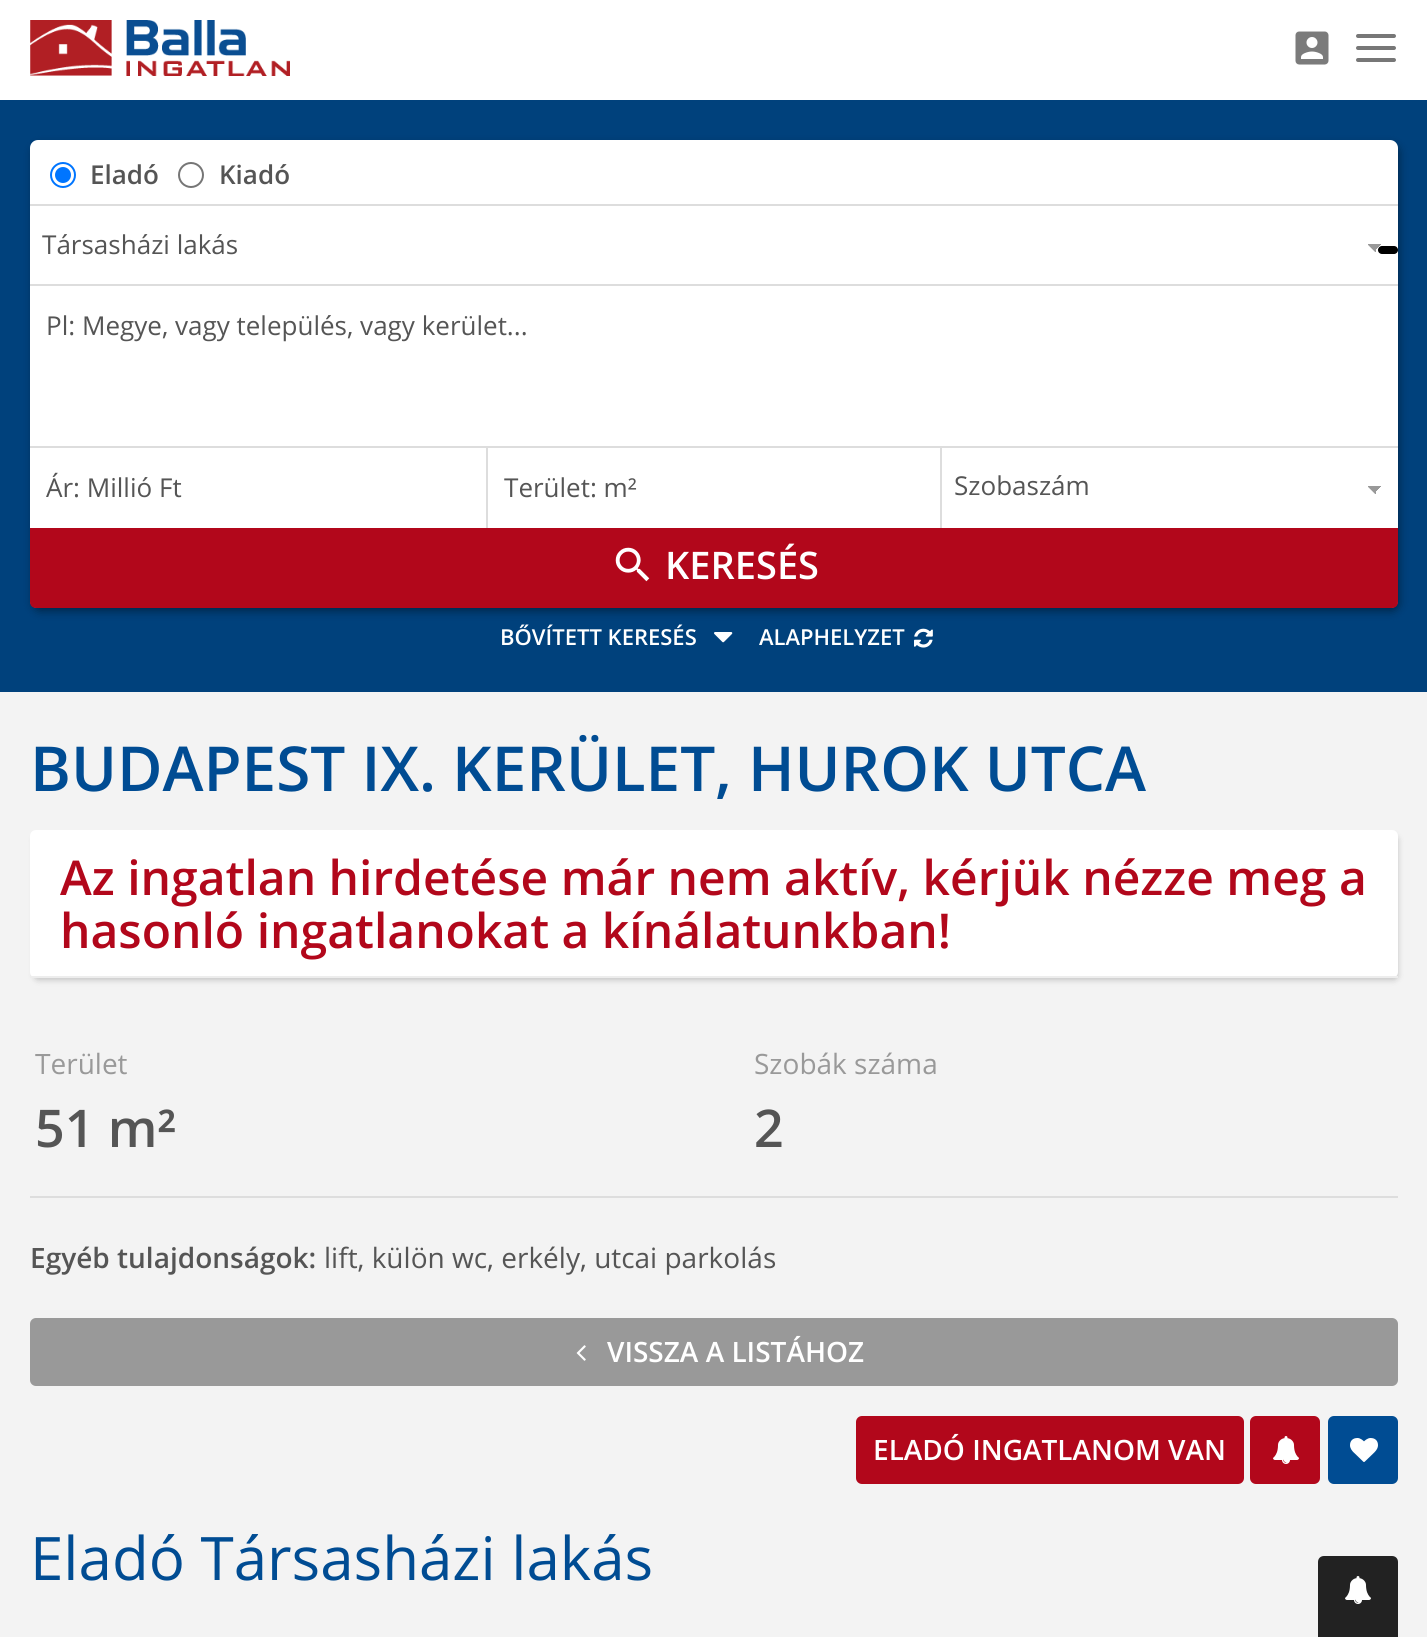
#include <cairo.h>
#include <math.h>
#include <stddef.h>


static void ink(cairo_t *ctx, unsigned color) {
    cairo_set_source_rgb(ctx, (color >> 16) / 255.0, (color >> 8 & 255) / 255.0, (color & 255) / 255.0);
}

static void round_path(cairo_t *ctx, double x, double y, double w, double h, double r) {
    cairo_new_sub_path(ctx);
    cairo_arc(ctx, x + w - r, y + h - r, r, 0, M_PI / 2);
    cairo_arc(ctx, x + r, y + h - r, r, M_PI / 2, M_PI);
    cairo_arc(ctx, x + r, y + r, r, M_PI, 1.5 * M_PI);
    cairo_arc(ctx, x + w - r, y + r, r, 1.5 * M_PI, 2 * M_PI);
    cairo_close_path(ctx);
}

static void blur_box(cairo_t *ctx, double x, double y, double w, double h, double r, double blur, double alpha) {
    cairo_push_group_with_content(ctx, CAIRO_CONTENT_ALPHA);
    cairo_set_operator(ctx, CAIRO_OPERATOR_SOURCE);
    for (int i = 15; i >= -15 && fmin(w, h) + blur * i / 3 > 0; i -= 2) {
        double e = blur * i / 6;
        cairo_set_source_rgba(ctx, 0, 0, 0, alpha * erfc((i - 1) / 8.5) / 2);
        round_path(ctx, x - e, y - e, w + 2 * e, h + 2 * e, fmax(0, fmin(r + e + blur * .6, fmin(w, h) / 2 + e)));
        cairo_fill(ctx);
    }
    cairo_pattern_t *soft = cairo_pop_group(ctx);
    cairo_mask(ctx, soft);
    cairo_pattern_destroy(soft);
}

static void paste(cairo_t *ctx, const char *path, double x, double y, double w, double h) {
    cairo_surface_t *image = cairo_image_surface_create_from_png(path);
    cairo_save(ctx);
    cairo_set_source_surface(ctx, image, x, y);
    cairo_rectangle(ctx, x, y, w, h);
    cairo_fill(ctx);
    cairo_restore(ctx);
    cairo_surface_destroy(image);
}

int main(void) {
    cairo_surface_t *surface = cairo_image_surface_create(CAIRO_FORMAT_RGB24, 1427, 1637);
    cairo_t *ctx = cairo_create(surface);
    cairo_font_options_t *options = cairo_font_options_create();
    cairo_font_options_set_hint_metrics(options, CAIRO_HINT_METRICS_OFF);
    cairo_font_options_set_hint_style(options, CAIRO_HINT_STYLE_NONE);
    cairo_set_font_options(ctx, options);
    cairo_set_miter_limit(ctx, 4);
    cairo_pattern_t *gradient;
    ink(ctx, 0xF3F3F3);
    cairo_paint(ctx);
    ink(ctx, 0xFFFFFF);
    cairo_rectangle(ctx, 0, 0, 1427, 100);
    cairo_fill(ctx);
    paste(ctx, "media/1.png", 30, 20, 260, 56);
    paste(ctx, "media/2.png", 1295, 31, 34, 34);
    ink(ctx, 0x777777);
    round_path(ctx, 1356, 34, 40, 4, 2);
    cairo_fill(ctx);
    round_path(ctx, 1356, 46, 40, 4, 2);
    cairo_fill(ctx);
    round_path(ctx, 1356, 58, 40, 4, 2);
    cairo_fill(ctx);
    ink(ctx, 0x00417C);
    cairo_rectangle(ctx, 0, 100, 1427, 592);
    cairo_fill(ctx);
    ink(ctx, 0x000000);
    blur_box(ctx, 34, 146, 1364, 464, 6, 5, 0.5);
    ink(ctx, 0xFFFFFF);
    round_path(ctx, 30, 140, 1368, 468, 8);
    cairo_fill(ctx);
    cairo_arc(ctx, 63, 175, 12, 0, 2 * M_PI);
    ink(ctx, 0x0075FF);
    cairo_stroke(ctx);
    cairo_arc(ctx, 63, 175, 8, 0, 2 * M_PI);
    cairo_fill(ctx);
    cairo_select_font_face(ctx, "Open Sans SemiBold", CAIRO_FONT_SLANT_NORMAL, CAIRO_FONT_WEIGHT_NORMAL);
    cairo_set_font_size(ctx, 26);
    ink(ctx, 0x555555);
    cairo_move_to(ctx, 90, 184);
    cairo_show_text(ctx, "Eladó");
    cairo_new_path(ctx);
    cairo_arc(ctx, 191, 175, 12, 0, 2 * M_PI);
    ink(ctx, 0x767676);
    cairo_stroke(ctx);
    ink(ctx, 0x555555);
    cairo_move_to(ctx, 219, 184);
    cairo_show_text(ctx, "Kiadó");
    ink(ctx, 0xDDDDDD);
    cairo_rectangle(ctx, 30, 204, 1368, 2);
    cairo_fill(ctx);
    gradient = cairo_pattern_create_linear(1374, 244, 1382, 252);
    cairo_pattern_add_color_stop_rgba(gradient, 0.5, 0.6, 0.6, 0.6, 1);
    cairo_pattern_add_color_stop_rgba(gradient, 0.5, 1, 1, 1, 1);
    cairo_set_source(ctx, gradient);
    cairo_pattern_destroy(gradient);
    cairo_rectangle(ctx, 1374, 244, 8, 7);
    cairo_fill(ctx);
    gradient = cairo_pattern_create_linear(1368, 252, 1376, 244);
    cairo_pattern_add_color_stop_rgba(gradient, 0.4, 0.6, 0.6, 0.6, 0);
    cairo_pattern_add_color_stop_rgba(gradient, 0.5, 0.6, 0.6, 0.6, 1);
    cairo_set_source(ctx, gradient);
    cairo_pattern_destroy(gradient);
    cairo_rectangle(ctx, 1368, 244, 8, 8);
    cairo_fill(ctx);
    cairo_select_font_face(ctx, "Open Sans", CAIRO_FONT_SLANT_NORMAL, CAIRO_FONT_WEIGHT_NORMAL);
    ink(ctx, 0x555555);
    cairo_move_to(ctx, 42, 254);
    cairo_show_text(ctx, "Társasházi lakás");
    ink(ctx, 0xDDDDDD);
    cairo_rectangle(ctx, 30, 284, 1368, 2);
    cairo_fill(ctx);
    ink(ctx, 0x000000);
    round_path(ctx, 1378, 246, 20, 8, 4);
    cairo_fill(ctx);
    ink(ctx, 0x555555);
    cairo_move_to(ctx, 46, 335);
    cairo_show_text(ctx, "Pl: Megye, vagy település, vagy kerület...");
    ink(ctx, 0xDDDDDD);
    cairo_rectangle(ctx, 30, 446, 1368, 2);
    cairo_fill(ctx);
    ink(ctx, 0x555555);
    cairo_move_to(ctx, 46, 497);
    cairo_show_text(ctx, "Ár: Millió Ft");
    ink(ctx, 0xDDDDDD);
    cairo_rectangle(ctx, 940, 446, 2, 82);
    cairo_fill(ctx);
    cairo_rectangle(ctx, 486, 446, 2, 82);
    cairo_fill(ctx);
    ink(ctx, 0x555555);
    cairo_move_to(ctx, 504, 497);
    cairo_show_text(ctx, "Terület: m²");
    gradient = cairo_pattern_create_linear(1374, 486, 1382, 494);
    cairo_pattern_add_color_stop_rgba(gradient, 0.5, 0.6, 0.6, 0.6, 1);
    cairo_pattern_add_color_stop_rgba(gradient, 0.5, 1, 1, 1, 1);
    cairo_set_source(ctx, gradient);
    cairo_pattern_destroy(gradient);
    cairo_rectangle(ctx, 1374, 486, 8, 7);
    cairo_fill(ctx);
    gradient = cairo_pattern_create_linear(1368, 494, 1376, 486);
    cairo_pattern_add_color_stop_rgba(gradient, 0.4, 0.6, 0.6, 0.6, 0);
    cairo_pattern_add_color_stop_rgba(gradient, 0.5, 0.6, 0.6, 0.6, 1);
    cairo_set_source(ctx, gradient);
    cairo_pattern_destroy(gradient);
    cairo_rectangle(ctx, 1368, 486, 8, 8);
    cairo_fill(ctx);
    ink(ctx, 0x555555);
    cairo_move_to(ctx, 954, 495);
    cairo_show_text(ctx, "Szobaszám");
    ink(ctx, 0xB2071B);
    cairo_new_path(ctx);
    cairo_move_to(ctx, 30, 528);
    cairo_line_to(ctx, 1398, 528);
    cairo_line_to(ctx, 1398, 602);
    cairo_curve_to(ctx, 1398, 605.5, 1395.5, 608, 1392, 608);
    cairo_line_to(ctx, 36, 608);
    cairo_curve_to(ctx, 32.5, 608, 30, 605.5, 30, 602);
    cairo_close_path(ctx);
    cairo_fill(ctx);
    paste(ctx, "media/3.png", 615, 547, 35, 35);
    cairo_select_font_face(ctx, "Open Sans SemiBold", CAIRO_FONT_SLANT_NORMAL, CAIRO_FONT_WEIGHT_NORMAL);
    cairo_set_font_size(ctx, 38);
    ink(ctx, 0xFFFFFF);
    cairo_move_to(ctx, 665, 579);
    cairo_show_text(ctx, "KERESÉS");
    cairo_set_font_size(ctx, 22);
    cairo_move_to(ctx, 500, 645);
    cairo_show_text(ctx, "BŐVÍTETT KERESÉS");
    paste(ctx, "media/4.png", 714, 632, 19, 11);
    cairo_move_to(ctx, 759, 645);
    cairo_show_text(ctx, "ALAPHELYZET");
    paste(ctx, "media/5.png", 914, 628, 19, 20);
    cairo_set_font_size(ctx, 62);
    ink(ctx, 0x004C93);
    cairo_move_to(ctx, 30, 791);
    cairo_show_text(ctx, "BUDAPEST IX. KERÜLET, HUROK UTCA");
    ink(ctx, 0x000000);
    blur_box(ctx, 34, 836, 1364, 144, 4, 3, 0.2);
    ink(ctx, 0xFFFFFF);
    round_path(ctx, 30, 830, 1368, 148, 6);
    cairo_fill(ctx);
    ink(ctx, 0xEDEDED);
    cairo_rectangle(ctx, 30, 976, 1368, 2);
    cairo_fill(ctx);
    cairo_set_font_size(ctx, 48);
    ink(ctx, 0xB2071B);
    cairo_move_to(ctx, 60, 895);
    cairo_show_text(ctx, "Az ingatlan hirdetése már nem aktív, kérjük nézze meg a");
    cairo_move_to(ctx, 60, 948);
    cairo_show_text(ctx, "hasonló ingatlanokat a kínálatunkban!");
    cairo_select_font_face(ctx, "Open Sans", CAIRO_FONT_SLANT_NORMAL, CAIRO_FONT_WEIGHT_NORMAL);
    cairo_set_font_size(ctx, 28);
    ink(ctx, 0x999999);
    cairo_move_to(ctx, 35, 1074);
    cairo_show_text(ctx, "Terület");
    cairo_select_font_face(ctx, "Open Sans SemiBold", CAIRO_FONT_SLANT_NORMAL, CAIRO_FONT_WEIGHT_NORMAL);
    cairo_set_font_size(ctx, 52);
    ink(ctx, 0x555555);
    cairo_move_to(ctx, 35, 1147);
    cairo_show_text(ctx, "51 m²");
    cairo_select_font_face(ctx, "Open Sans", CAIRO_FONT_SLANT_NORMAL, CAIRO_FONT_WEIGHT_NORMAL);
    cairo_set_font_size(ctx, 28);
    ink(ctx, 0x999999);
    cairo_move_to(ctx, 754, 1074);
    cairo_show_text(ctx, "Szobák száma");
    cairo_select_font_face(ctx, "Open Sans SemiBold", CAIRO_FONT_SLANT_NORMAL, CAIRO_FONT_WEIGHT_NORMAL);
    cairo_set_font_size(ctx, 52);
    ink(ctx, 0x555555);
    cairo_move_to(ctx, 754, 1147);
    cairo_show_text(ctx, "2");
    ink(ctx, 0xDDDDDD);
    cairo_rectangle(ctx, 30, 1196, 1368, 2);
    cairo_fill(ctx);
    cairo_set_font_size(ctx, 28);
    ink(ctx, 0x555555);
    cairo_move_to(ctx, 30, 1268);
    cairo_show_text(ctx, "Egyéb tulajdonságok:");
    cairo_select_font_face(ctx, "Open Sans", CAIRO_FONT_SLANT_NORMAL, CAIRO_FONT_WEIGHT_NORMAL);
    cairo_move_to(ctx, 324, 1268);
    cairo_show_text(ctx, "lift, külön wc, erkély, utcai parkolás");
    ink(ctx, 0x999999);
    round_path(ctx, 31, 1319, 1366, 66, 5);
    cairo_fill_preserve(ctx);
    cairo_stroke(ctx);
    paste(ctx, "media/6.png", 576, 1345, 10, 16);
    cairo_select_font_face(ctx, "Open Sans SemiBold", CAIRO_FONT_SLANT_NORMAL, CAIRO_FONT_WEIGHT_NORMAL);
    ink(ctx, 0xFFFFFF);
    cairo_move_to(ctx, 607, 1362);
    cairo_show_text(ctx, "VISSZA A LISTÁHOZ");
    ink(ctx, 0xB2071B);
    round_path(ctx, 856, 1416, 388, 68, 6);
    cairo_fill(ctx);
    ink(ctx, 0xFFFFFF);
    cairo_move_to(ctx, 873, 1460);
    cairo_show_text(ctx, "ELADÓ INGATLANOM VAN");
    ink(ctx, 0xB2071B);
    round_path(ctx, 1250, 1416, 70, 68, 6);
    cairo_fill(ctx);
    paste(ctx, "media/7.png", 1273, 1436, 26, 28);
    ink(ctx, 0x004C93);
    round_path(ctx, 1328, 1416, 70, 68, 6);
    cairo_fill(ctx);
    paste(ctx, "media/8.png", 1350, 1438, 28, 24);
    cairo_select_font_face(ctx, "Open Sans", CAIRO_FONT_SLANT_NORMAL, CAIRO_FONT_WEIGHT_NORMAL);
    cairo_set_font_size(ctx, 60);
    cairo_move_to(ctx, 30, 1580);
    cairo_show_text(ctx, "Eladó Társasházi lakás");
    ink(ctx, 0x222222);
    cairo_new_path(ctx);
    cairo_move_to(ctx, 1324, 1556);
    cairo_line_to(ctx, 1392, 1556);
    cairo_curve_to(ctx, 1395.5, 1556, 1398, 1558.5, 1398, 1562);
    cairo_line_to(ctx, 1398, 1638);
    cairo_line_to(ctx, 1318, 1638);
    cairo_line_to(ctx, 1318, 1562);
    cairo_curve_to(ctx, 1318, 1558.5, 1320.5, 1556, 1324, 1556);
    cairo_close_path(ctx);
    cairo_fill(ctx);
    paste(ctx, "media/9.png", 1345, 1576, 26, 28);
    cairo_surface_write_to_png(surface, "image.png");
    cairo_font_options_destroy(options);
    cairo_destroy(ctx);
    cairo_surface_destroy(surface);
    return 0;
}
